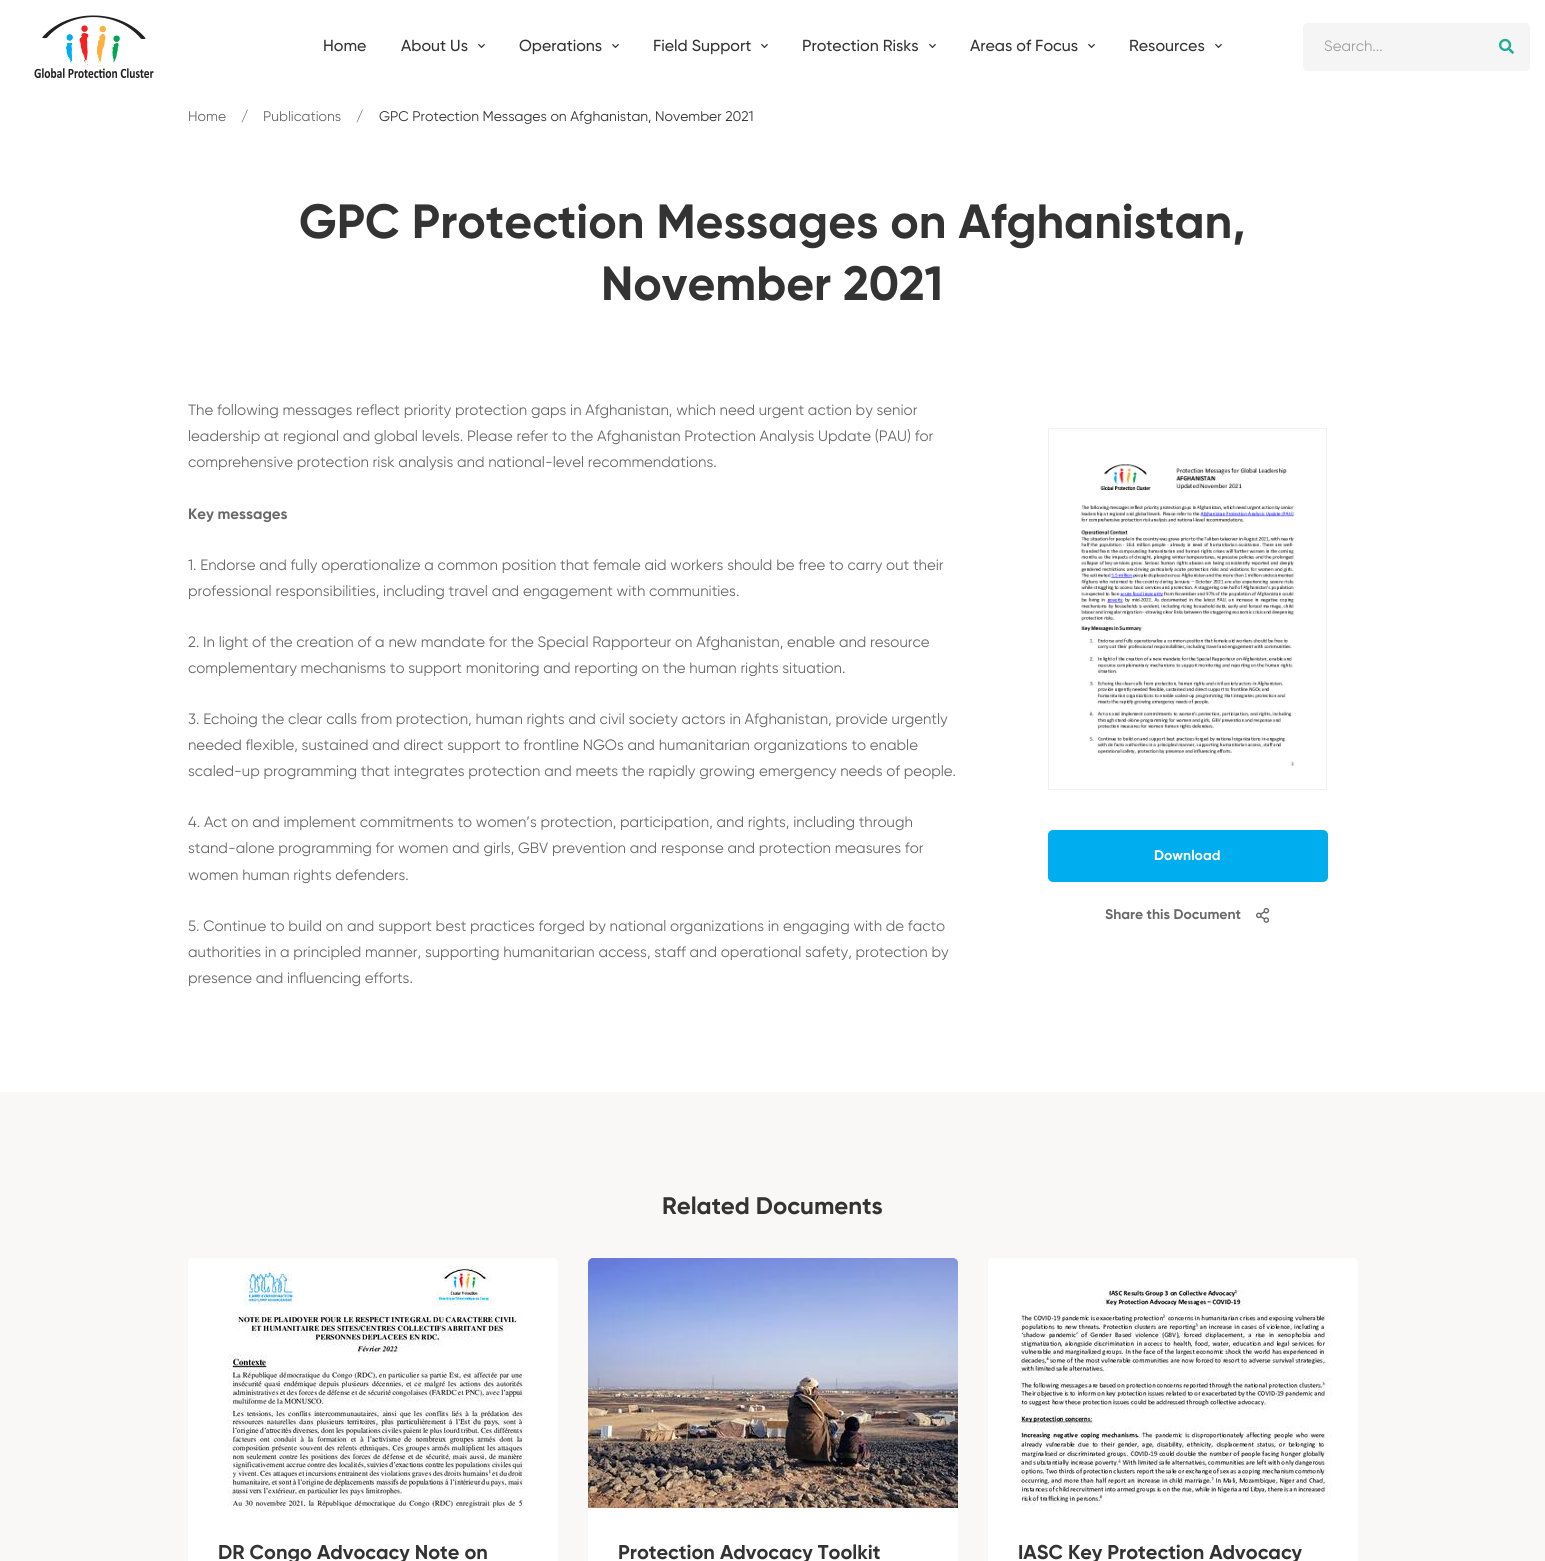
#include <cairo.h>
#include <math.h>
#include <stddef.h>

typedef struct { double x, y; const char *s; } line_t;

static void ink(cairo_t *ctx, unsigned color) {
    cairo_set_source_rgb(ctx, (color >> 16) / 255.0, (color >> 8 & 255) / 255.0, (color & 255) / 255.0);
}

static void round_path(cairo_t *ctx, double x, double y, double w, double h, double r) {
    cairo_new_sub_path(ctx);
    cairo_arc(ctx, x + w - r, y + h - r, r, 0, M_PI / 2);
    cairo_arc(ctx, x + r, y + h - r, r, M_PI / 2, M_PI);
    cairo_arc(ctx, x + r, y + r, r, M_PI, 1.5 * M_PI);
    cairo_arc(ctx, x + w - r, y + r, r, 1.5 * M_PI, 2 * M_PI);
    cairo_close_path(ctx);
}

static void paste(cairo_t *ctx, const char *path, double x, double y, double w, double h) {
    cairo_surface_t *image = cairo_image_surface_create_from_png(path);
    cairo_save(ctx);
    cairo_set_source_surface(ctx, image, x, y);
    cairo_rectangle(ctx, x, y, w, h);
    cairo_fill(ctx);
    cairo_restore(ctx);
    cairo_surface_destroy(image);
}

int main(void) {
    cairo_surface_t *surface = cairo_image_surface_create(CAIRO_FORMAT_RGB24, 1545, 1561);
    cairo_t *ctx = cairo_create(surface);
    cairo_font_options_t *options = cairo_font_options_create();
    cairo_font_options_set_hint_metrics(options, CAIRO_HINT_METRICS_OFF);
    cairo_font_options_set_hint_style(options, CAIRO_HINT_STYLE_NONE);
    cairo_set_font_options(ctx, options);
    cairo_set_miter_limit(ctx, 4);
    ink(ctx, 0xFFFFFF);
    cairo_paint(ctx);
    paste(ctx, "media/1.png", 34, 15, 120, 63);
    cairo_select_font_face(ctx, "Gilroy Medium", CAIRO_FONT_SLANT_NORMAL, CAIRO_FONT_WEIGHT_NORMAL);
    cairo_set_font_size(ctx, 16);
    ink(ctx, 0x333333);
    cairo_move_to(ctx, 323, 51);
    cairo_show_text(ctx, "Home");
    cairo_move_to(ctx, 401, 51);
    cairo_show_text(ctx, "About Us");
    paste(ctx, "media/2.png", 478, 44, 7, 4);
    cairo_move_to(ctx, 519, 51);
    cairo_show_text(ctx, "Operations");
    paste(ctx, "media/2.png", 612, 44, 7, 4);
    cairo_move_to(ctx, 653, 51);
    cairo_show_text(ctx, "Field Support");
    paste(ctx, "media/2.png", 761, 44, 7, 4);
    cairo_move_to(ctx, 802, 51);
    cairo_show_text(ctx, "Protection Risks");
    paste(ctx, "media/2.png", 929, 44, 7, 4);
    cairo_move_to(ctx, 970, 51);
    cairo_show_text(ctx, "Areas of Focus");
    paste(ctx, "media/2.png", 1088, 44, 7, 4);
    cairo_move_to(ctx, 1129, 51);
    cairo_show_text(ctx, "Resources");
    paste(ctx, "media/2.png", 1215, 44, 7, 4);
    cairo_save(ctx);
    round_path(ctx, 1303, 23, 227, 48, 4);
    cairo_clip(ctx);
    ink(ctx, 0xF5F5F5);
    round_path(ctx, 1303, 23, 227, 48, 5);
    cairo_fill(ctx);
    cairo_restore(ctx);
    round_path(ctx, 1303.5, 23.5, 226, 47, 4.5);
    ink(ctx, 0xF5F5F5);
    cairo_set_line_width(ctx, 1);
    cairo_stroke(ctx);
    cairo_select_font_face(ctx, "Gilroy", CAIRO_FONT_SLANT_NORMAL, CAIRO_FONT_WEIGHT_NORMAL);
    cairo_set_font_size(ctx, 15);
    ink(ctx, 0x9F9F9F);
    cairo_move_to(ctx, 1324, 51);
    cairo_show_text(ctx, "Search...");
    paste(ctx, "media/3.png", 1499, 38, 15, 16);
    cairo_set_font_size(ctx, 14);
    ink(ctx, 0x696969);
    {
        static const line_t items[] = {
            {188, 121, "Home"},
            {241, 121, "/"},
            {263, 121, "Publications"},
            {356, 121, "/"},
        };
        for (size_t i = 0; i < sizeof items / sizeof *items; i++) {
            cairo_move_to(ctx, items[i].x, items[i].y);
            cairo_show_text(ctx, items[i].s);
        }
    }
    ink(ctx, 0x333333);
    cairo_move_to(ctx, 379, 121);
    cairo_show_text(ctx, "GPC Protection Messages on Afghanistan, November 2021");
    cairo_select_font_face(ctx, "Gilroy", CAIRO_FONT_SLANT_NORMAL, CAIRO_FONT_WEIGHT_BOLD);
    cairo_set_font_size(ctx, 48);
    cairo_move_to(ctx, 299, 238);
    cairo_show_text(ctx, "GPC Protection Messages on Afghanistan,");
    cairo_move_to(ctx, 601, 300);
    cairo_show_text(ctx, "November 2021");
    cairo_select_font_face(ctx, "Gilroy", CAIRO_FONT_SLANT_NORMAL, CAIRO_FONT_WEIGHT_NORMAL);
    cairo_set_font_size(ctx, 15);
    ink(ctx, 0x696969);
    {
        static const line_t items[] = {
            {188, 415, "The following messages reflect priority protection gaps in Afghanistan, which need urgent action by senior"},
            {188, 441, "leadership at regional and global levels. Please refer to the Afghanistan Protection Analysis Update (PAU) for"},
            {188, 467, "comprehensive protection risk analysis and national-level recommendations."},
        };
        for (size_t i = 0; i < sizeof items / sizeof *items; i++) {
            cairo_move_to(ctx, items[i].x, items[i].y);
            cairo_show_text(ctx, items[i].s);
        }
    }
    cairo_select_font_face(ctx, "Gilroy", CAIRO_FONT_SLANT_NORMAL, CAIRO_FONT_WEIGHT_BOLD);
    cairo_move_to(ctx, 188, 519);
    cairo_show_text(ctx, "Key messages");
    cairo_select_font_face(ctx, "Gilroy", CAIRO_FONT_SLANT_NORMAL, CAIRO_FONT_WEIGHT_NORMAL);
    {
        static const line_t items[] = {
            {188, 570, "1. Endorse and fully operationalize a common position that female aid workers should be free to carry out their"},
            {188, 596, "professional responsibilities, including travel and engagement with communities."},
            {188, 647, "2. In light of the creation of a new mandate for the Special Rapporteur on Afghanistan, enable and resource"},
            {188, 673, "complementary mechanisms to support monitoring and reporting on the human rights situation."},
            {188, 724, "3. Echoing the clear calls from protection, human rights and civil society actors in Afghanistan, provide urgently"},
            {188, 750, "needed flexible, sustained and direct support to frontline NGOs and humanitarian organizations to enable"},
            {188, 776, "scaled-up programming that integrates protection and meets the rapidly growing emergency needs of people."},
            {188, 827, "4. Act on and implement commitments to women’s protection, participation, and rights, including through"},
            {188, 853, "stand-alone programming for women and girls, GBV prevention and response and protection measures for"},
            {188, 880, "women human rights defenders."},
            {188, 931, "5. Continue to build on and support best practices forged by national organizations in engaging with de facto"},
            {188, 957, "authorities in a principled manner, supporting humanitarian access, staff and operational safety, protection by"},
            {188, 983, "presence and influencing efforts."},
        };
        for (size_t i = 0; i < sizeof items / sizeof *items; i++) {
            cairo_move_to(ctx, items[i].x, items[i].y);
            cairo_show_text(ctx, items[i].s);
        }
    }
    cairo_rectangle(ctx, 1048.5, 428.5, 278, 361);
    ink(ctx, 0xF1F1F1);
    cairo_stroke(ctx);
    paste(ctx, "media/4.png", 1081, 464, 214, 302);
    ink(ctx, 0x00AEEF);
    round_path(ctx, 1048.5, 830.5, 279, 51, 4.5);
    cairo_fill_preserve(ctx);
    cairo_stroke(ctx);
    cairo_select_font_face(ctx, "Gilroy", CAIRO_FONT_SLANT_NORMAL, CAIRO_FONT_WEIGHT_BOLD);
    cairo_set_font_size(ctx, 14);
    ink(ctx, 0xFFFFFF);
    cairo_move_to(ctx, 1154, 860);
    cairo_show_text(ctx, "Download");
    ink(ctx, 0x696969);
    cairo_move_to(ctx, 1105, 919);
    cairo_show_text(ctx, "Share this Document");
    paste(ctx, "media/5.png", 1256, 907, 14, 16);
    ink(ctx, 0xFAF8F6);
    cairo_rectangle(ctx, 0, 1092, 1545, 469);
    cairo_fill(ctx);
    cairo_set_font_size(ctx, 24);
    ink(ctx, 0x333333);
    cairo_move_to(ctx, 662, 1214);
    cairo_show_text(ctx, "Related Documents");
    ink(ctx, 0xFFFFFF);
    round_path(ctx, 188, 1258, 370, 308, 5);
    cairo_fill(ctx);
    paste(ctx, "media/6.png", 228, 1266, 296, 242);
    cairo_set_font_size(ctx, 20);
    ink(ctx, 0x333333);
    cairo_move_to(ctx, 218, 1559);
    cairo_show_text(ctx, "DR Congo Advocacy Note on");
    ink(ctx, 0xFFFFFF);
    round_path(ctx, 588, 1258, 370, 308, 5);
    cairo_fill(ctx);
    paste(ctx, "media/7.png", 588, 1258, 370, 250);
    ink(ctx, 0x333333);
    cairo_move_to(ctx, 618, 1559);
    cairo_show_text(ctx, "Protection Advocacy Toolkit");
    ink(ctx, 0xFFFFFF);
    round_path(ctx, 988, 1258, 370, 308, 5);
    cairo_fill(ctx);
    paste(ctx, "media/8.png", 1020, 1290, 312, 216);
    ink(ctx, 0x333333);
    cairo_move_to(ctx, 1018, 1559);
    cairo_show_text(ctx, "IASC Key Protection Advocacy");
    cairo_surface_write_to_png(surface, "image.png");
    cairo_font_options_destroy(options);
    cairo_destroy(ctx);
    cairo_surface_destroy(surface);
    return 0;
}
